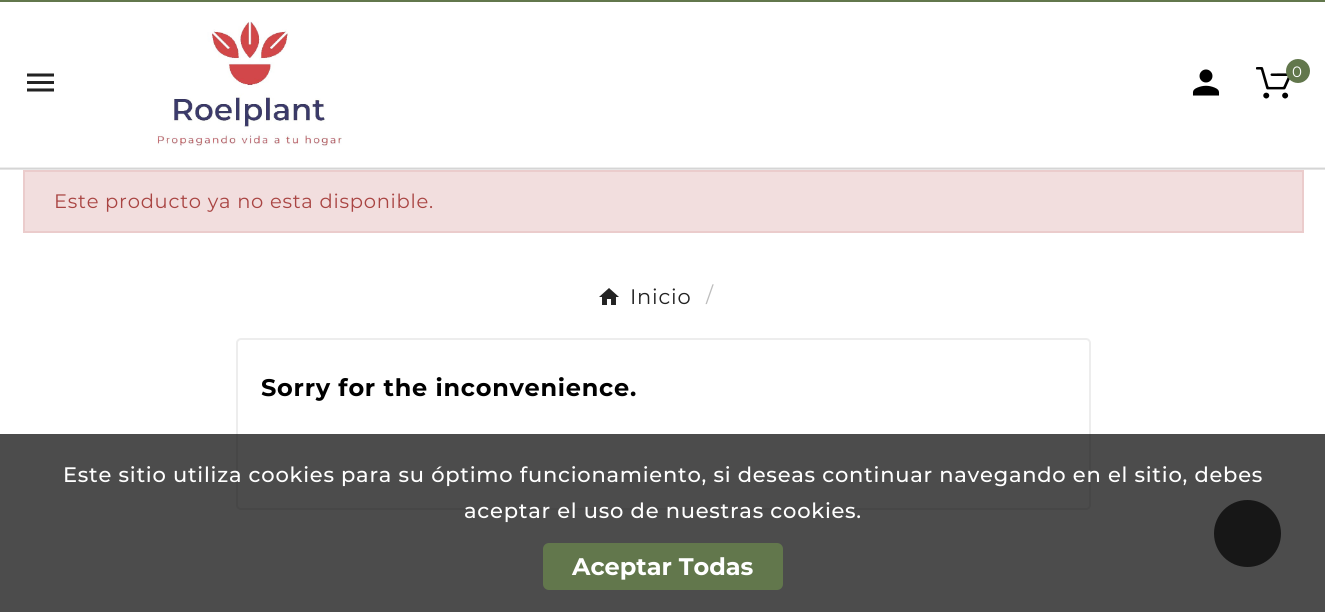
#include <cairo.h>
#include <math.h>
#include <stddef.h>

typedef struct { double x, y, w, h; unsigned color; } box_t;

static void ink(cairo_t *ctx, unsigned color) {
    cairo_set_source_rgb(ctx, (color >> 16) / 255.0, (color >> 8 & 255) / 255.0, (color & 255) / 255.0);
}

static void write_spaced(cairo_t *ctx, double x, double y, const char *s, double letter, double word) {
    cairo_move_to(ctx, x, y);
    while (*s) {
        char ch[5] = {0};
        int n = 0;
        do ch[n++] = *s++; while ((*s & 0xC0) == 0x80);
        cairo_show_text(ctx, ch);
        cairo_rel_move_to(ctx, letter + word * (*ch == ' '), 0);
    }
}

static void round_path(cairo_t *ctx, double x, double y, double w, double h, double r) {
    cairo_new_sub_path(ctx);
    cairo_arc(ctx, x + w - r, y + h - r, r, 0, M_PI / 2);
    cairo_arc(ctx, x + r, y + h - r, r, M_PI / 2, M_PI);
    cairo_arc(ctx, x + r, y + r, r, M_PI, 1.5 * M_PI);
    cairo_arc(ctx, x + w - r, y + r, r, 1.5 * M_PI, 2 * M_PI);
    cairo_close_path(ctx);
}

static void paste(cairo_t *ctx, const char *path, double x, double y, double w, double h) {
    cairo_surface_t *image = cairo_image_surface_create_from_png(path);
    cairo_save(ctx);
    cairo_set_source_surface(ctx, image, x, y);
    cairo_rectangle(ctx, x, y, w, h);
    cairo_fill(ctx);
    cairo_restore(ctx);
    cairo_surface_destroy(image);
}

int main(void) {
    cairo_surface_t *surface = cairo_image_surface_create(CAIRO_FORMAT_RGB24, 1325, 612);
    cairo_t *ctx = cairo_create(surface);
    cairo_font_options_t *options = cairo_font_options_create();
    cairo_font_options_set_hint_metrics(options, CAIRO_HINT_METRICS_OFF);
    cairo_font_options_set_hint_style(options, CAIRO_HINT_STYLE_NONE);
    cairo_set_font_options(ctx, options);
    cairo_set_miter_limit(ctx, 4);
    ink(ctx, 0xFFFFFF);
    cairo_paint(ctx);
    {
        static const box_t items[] = {
            {0, 167, 1325, 1, 0xEDEDED},
            {0, 169, 1325, 1, 0xE5E5E5},
            {0, 168, 1325, 1, 0xD5D5D5},
            {0, 0, 1325, 2, 0x62774C},
        };
        for (size_t i = 0; i < sizeof items / sizeof *items; i++) {
            ink(ctx, items[i].color);
            cairo_rectangle(ctx, items[i].x, items[i].y, items[i].w, items[i].h);
            cairo_fill(ctx);
        }
    }
    paste(ctx, "media/1.png", 27, 73, 27, 19);
    paste(ctx, "media/2.png", 157, 21, 185, 126);
    paste(ctx, "media/3.png", 1192, 69, 28, 27);
    paste(ctx, "media/4.png", 1256, 67, 34, 32);
    cairo_arc(ctx, 1298, 71, 12, 0, 2 * M_PI);
    cairo_fill(ctx);
    cairo_select_font_face(ctx, "Montserrat", CAIRO_FONT_SLANT_NORMAL, CAIRO_FONT_WEIGHT_NORMAL);
    cairo_set_font_size(ctx, 15);
    ink(ctx, 0xFFFFFF);
    write_spaced(ctx, 1292, 77, "0", 0.75, 0);
    ink(ctx, 0xF2DEDE);
    cairo_rectangle(ctx, 24, 171, 1279, 61);
    cairo_fill_preserve(ctx);
    ink(ctx, 0xEBCCCC);
    cairo_stroke(ctx);
    cairo_set_font_size(ctx, 19.5);
    ink(ctx, 0xA94442);
    write_spaced(ctx, 54, 208, "Este producto ya no esta disponible.", 0.75, 0);
    paste(ctx, "media/5.png", 599, 288, 20, 17);
    cairo_set_font_size(ctx, 21);
    ink(ctx, 0x232323);
    write_spaced(ctx, 630, 304, "Inicio", 0.75, 0);
    ink(ctx, 0xBDBDBD);
    write_spaced(ctx, 706, 302, "/", 0.75, 0);
    round_path(ctx, 237, 339, 853, 170, 4);
    ink(ctx, 0xEDEDED);
    cairo_stroke(ctx);
    cairo_select_font_face(ctx, "Montserrat", CAIRO_FONT_SLANT_NORMAL, CAIRO_FONT_WEIGHT_BOLD);
    cairo_set_font_size(ctx, 24);
    ink(ctx, 0x000000);
    write_spaced(ctx, 261, 396, "Sorry for the inconvenience.", 0.75, 0);
    ink(ctx, 0x4C4C4C);
    cairo_new_path(ctx);
    cairo_arc(ctx, 1247.5, 533.5, 33.5, 0, 2 * M_PI);
    cairo_fill(ctx);
    cairo_set_source_rgba(ctx, 0, 0, 0, 0.7);
    cairo_rectangle(ctx, 0, 434, 1325, 178);
    cairo_fill(ctx);
    cairo_select_font_face(ctx, "Montserrat Medium", CAIRO_FONT_SLANT_NORMAL, CAIRO_FONT_WEIGHT_NORMAL);
    cairo_set_font_size(ctx, 21);
    ink(ctx, 0xFFFFFF);
    write_spaced(ctx, 63, 482, "Este sitio utiliza cookies para su óptimo funcionamiento, si deseas continuar navegando en el sitio, debes", 0.75, 0);
    write_spaced(ctx, 464, 518, "aceptar el uso de nuestras cookies.", 0.75, 0);
    ink(ctx, 0x62774C);
    round_path(ctx, 543, 543, 240, 47, 6);
    cairo_fill(ctx);
    cairo_select_font_face(ctx, "Montserrat", CAIRO_FONT_SLANT_NORMAL, CAIRO_FONT_WEIGHT_BOLD);
    cairo_set_font_size(ctx, 24);
    ink(ctx, 0xFFFFFF);
    cairo_move_to(ctx, 572, 575);
    cairo_show_text(ctx, "Aceptar Todas");
    cairo_surface_write_to_png(surface, "image.png");
    cairo_font_options_destroy(options);
    cairo_destroy(ctx);
    cairo_surface_destroy(surface);
    return 0;
}
